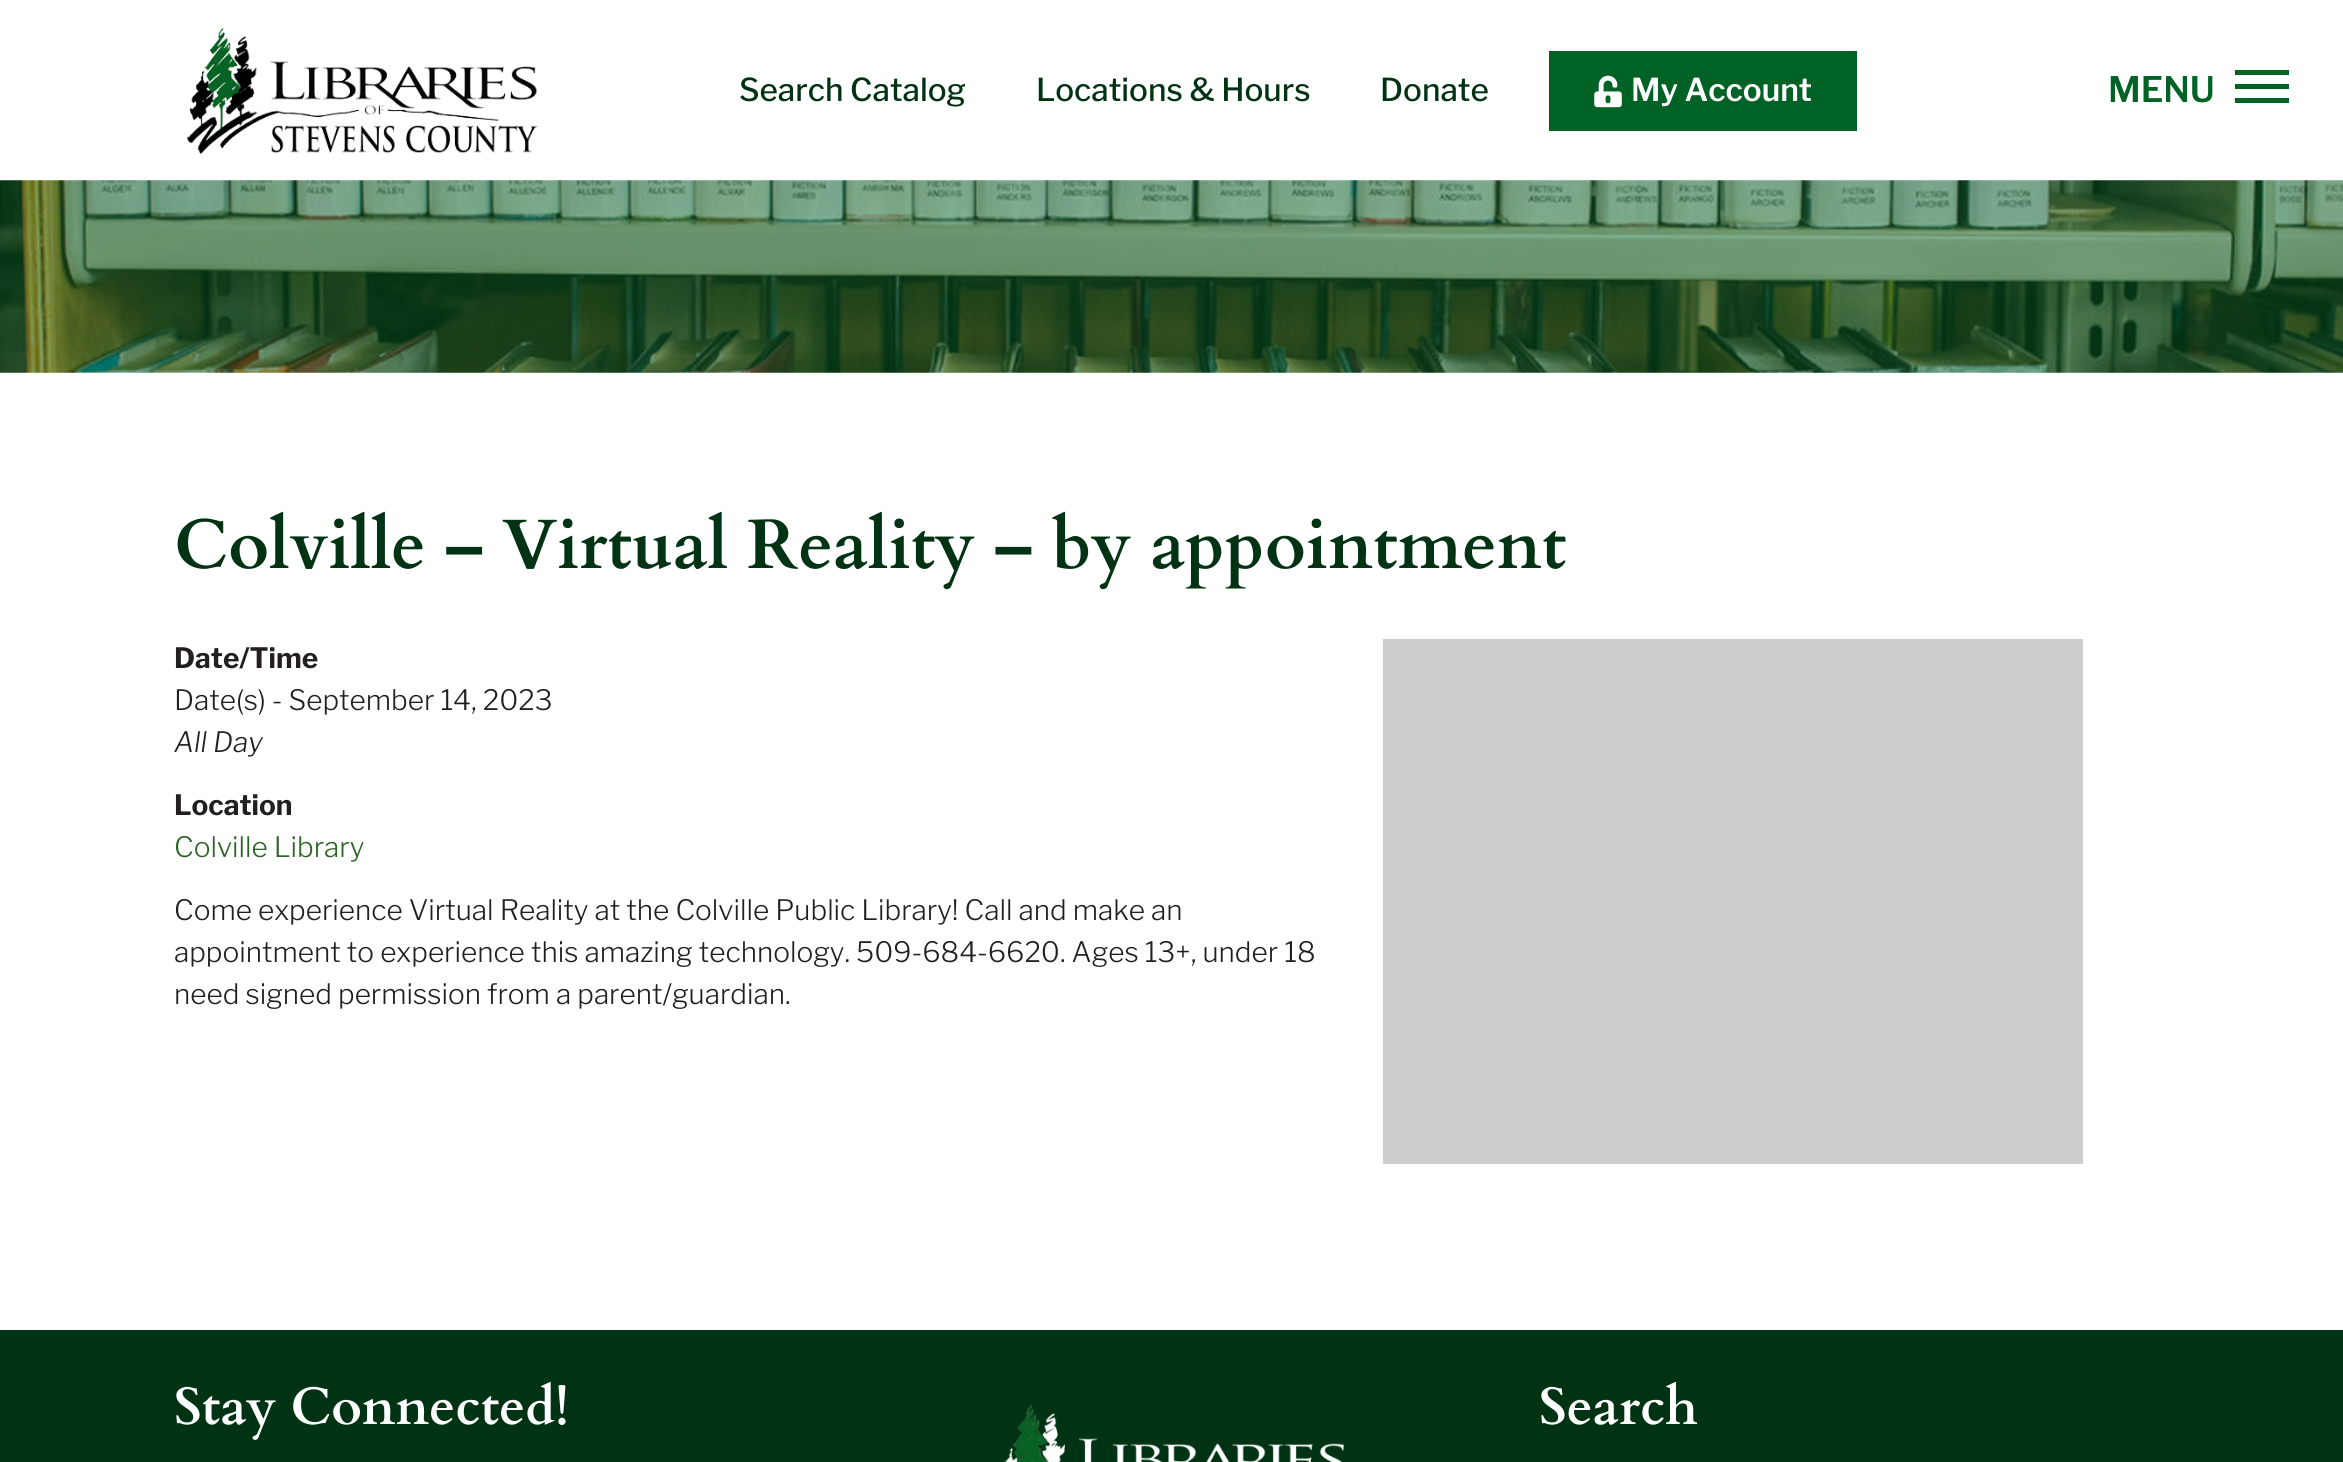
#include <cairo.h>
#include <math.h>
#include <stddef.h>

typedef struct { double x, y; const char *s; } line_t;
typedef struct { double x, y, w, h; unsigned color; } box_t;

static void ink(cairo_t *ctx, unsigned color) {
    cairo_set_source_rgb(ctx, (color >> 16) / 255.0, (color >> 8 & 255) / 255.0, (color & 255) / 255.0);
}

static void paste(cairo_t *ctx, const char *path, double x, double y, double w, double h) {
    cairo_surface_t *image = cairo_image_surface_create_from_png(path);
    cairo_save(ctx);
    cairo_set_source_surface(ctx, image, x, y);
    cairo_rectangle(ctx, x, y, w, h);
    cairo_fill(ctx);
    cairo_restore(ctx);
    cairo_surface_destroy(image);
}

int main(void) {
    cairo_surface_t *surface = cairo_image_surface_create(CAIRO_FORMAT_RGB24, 2343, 1462);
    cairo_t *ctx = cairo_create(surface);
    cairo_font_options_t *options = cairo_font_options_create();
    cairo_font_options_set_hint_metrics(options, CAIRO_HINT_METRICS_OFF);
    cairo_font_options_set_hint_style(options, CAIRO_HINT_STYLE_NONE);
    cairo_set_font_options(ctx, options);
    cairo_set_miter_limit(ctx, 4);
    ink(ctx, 0xFFFFFF);
    cairo_paint(ctx);
    paste(ctx, "media/1.png", 187, 28, 351, 126);
    cairo_select_font_face(ctx, "Libre Franklin Medium", CAIRO_FONT_SLANT_NORMAL, CAIRO_FONT_WEIGHT_NORMAL);
    cairo_set_font_size(ctx, 31.5);
    ink(ctx, 0x003313);
    {
        static const line_t items[] = {
            {739, 101, "Search Catalog"},
            {1036, 101, "Locations & Hours"},
            {1380, 101, "Donate"},
        };
        for (size_t i = 0; i < sizeof items / sizeof *items; i++) {
            cairo_move_to(ctx, items[i].x, items[i].y);
            cairo_show_text(ctx, items[i].s);
        }
    }
    ink(ctx, 0x006225);
    cairo_rectangle(ctx, 1549, 51, 308, 80);
    cairo_fill(ctx);
    paste(ctx, "media/2.png", 1594, 75, 28, 33);
    cairo_select_font_face(ctx, "Libre Franklin SemiBold", CAIRO_FONT_SLANT_NORMAL, CAIRO_FONT_WEIGHT_NORMAL);
    ink(ctx, 0xFFFFFF);
    cairo_move_to(ctx, 1631, 101);
    cairo_show_text(ctx, "My Account");
    paste(ctx, "media/3.png", 0, 180, 2343, 193);
    cairo_select_font_face(ctx, "Cardo", CAIRO_FONT_SLANT_NORMAL, CAIRO_FONT_WEIGHT_BOLD);
    cairo_set_font_size(ctx, 70);
    ink(ctx, 0x003313);
    cairo_move_to(ctx, 174, 568);
    cairo_show_text(ctx, "Colville – Virtual Reality – by appointment");
    cairo_select_font_face(ctx, "Libre Franklin", CAIRO_FONT_SLANT_NORMAL, CAIRO_FONT_WEIGHT_BOLD);
    cairo_set_font_size(ctx, 28);
    ink(ctx, 0x231F20);
    cairo_move_to(ctx, 174, 668);
    cairo_show_text(ctx, "Date/Time");
    ink(ctx, 0xCDCDCD);
    cairo_rectangle(ctx, 1383, 639, 700, 525);
    cairo_fill(ctx);
    cairo_select_font_face(ctx, "Libre Franklin Light", CAIRO_FONT_SLANT_NORMAL, CAIRO_FONT_WEIGHT_NORMAL);
    ink(ctx, 0x231F20);
    cairo_move_to(ctx, 174, 710);
    cairo_show_text(ctx, "Date(s) - September 14, 2023");
    cairo_select_font_face(ctx, "Libre Franklin Light", CAIRO_FONT_SLANT_ITALIC, CAIRO_FONT_WEIGHT_NORMAL);
    cairo_move_to(ctx, 174, 752);
    cairo_show_text(ctx, "All Day");
    cairo_select_font_face(ctx, "Libre Franklin", CAIRO_FONT_SLANT_NORMAL, CAIRO_FONT_WEIGHT_BOLD);
    cairo_move_to(ctx, 174, 815);
    cairo_show_text(ctx, "Location");
    cairo_select_font_face(ctx, "Libre Franklin Light", CAIRO_FONT_SLANT_NORMAL, CAIRO_FONT_WEIGHT_NORMAL);
    ink(ctx, 0x2C6326);
    cairo_move_to(ctx, 174, 857);
    cairo_show_text(ctx, "Colville Library");
    ink(ctx, 0x231F20);
    {
        static const line_t items[] = {
            {174, 920, "Come experience Virtual Reality at the Colville Public Library! Call and make an"},
            {174, 962, "appointment to experience this amazing technology. 509-684-6620. Ages 13+, under 18"},
            {174, 1004, "need signed permission from a parent/guardian."},
        };
        for (size_t i = 0; i < sizeof items / sizeof *items; i++) {
            cairo_move_to(ctx, items[i].x, items[i].y);
            cairo_show_text(ctx, items[i].s);
        }
    }
    ink(ctx, 0x003313);
    cairo_rectangle(ctx, 0, 1330, 2343, 132);
    cairo_fill(ctx);
    cairo_select_font_face(ctx, "Cardo", CAIRO_FONT_SLANT_NORMAL, CAIRO_FONT_WEIGHT_BOLD);
    cairo_set_font_size(ctx, 52.5);
    ink(ctx, 0xFFFFFF);
    cairo_move_to(ctx, 174, 1424);
    cairo_show_text(ctx, "Stay Connected!");
    paste(ctx, "media/4.png", 1004, 1405, 340, 57);
    cairo_move_to(ctx, 1539, 1424);
    cairo_show_text(ctx, "Search");
    cairo_select_font_face(ctx, "Libre Franklin SemiBold", CAIRO_FONT_SLANT_NORMAL, CAIRO_FONT_WEIGHT_NORMAL);
    cairo_set_font_size(ctx, 35);
    ink(ctx, 0x006225);
    cairo_move_to(ctx, 2108, 102);
    cairo_show_text(ctx, "MENU");
    {
        static const box_t items[] = {
            {2235, 84, 54, 5, 0x006225},
            {2235, 70, 54, 5, 0x006225},
            {2235, 98, 54, 5, 0x006225},
        };
        for (size_t i = 0; i < sizeof items / sizeof *items; i++) {
            ink(ctx, items[i].color);
            cairo_rectangle(ctx, items[i].x, items[i].y, items[i].w, items[i].h);
            cairo_fill(ctx);
        }
    }
    cairo_surface_write_to_png(surface, "image.png");
    cairo_font_options_destroy(options);
    cairo_destroy(ctx);
    cairo_surface_destroy(surface);
    return 0;
}
